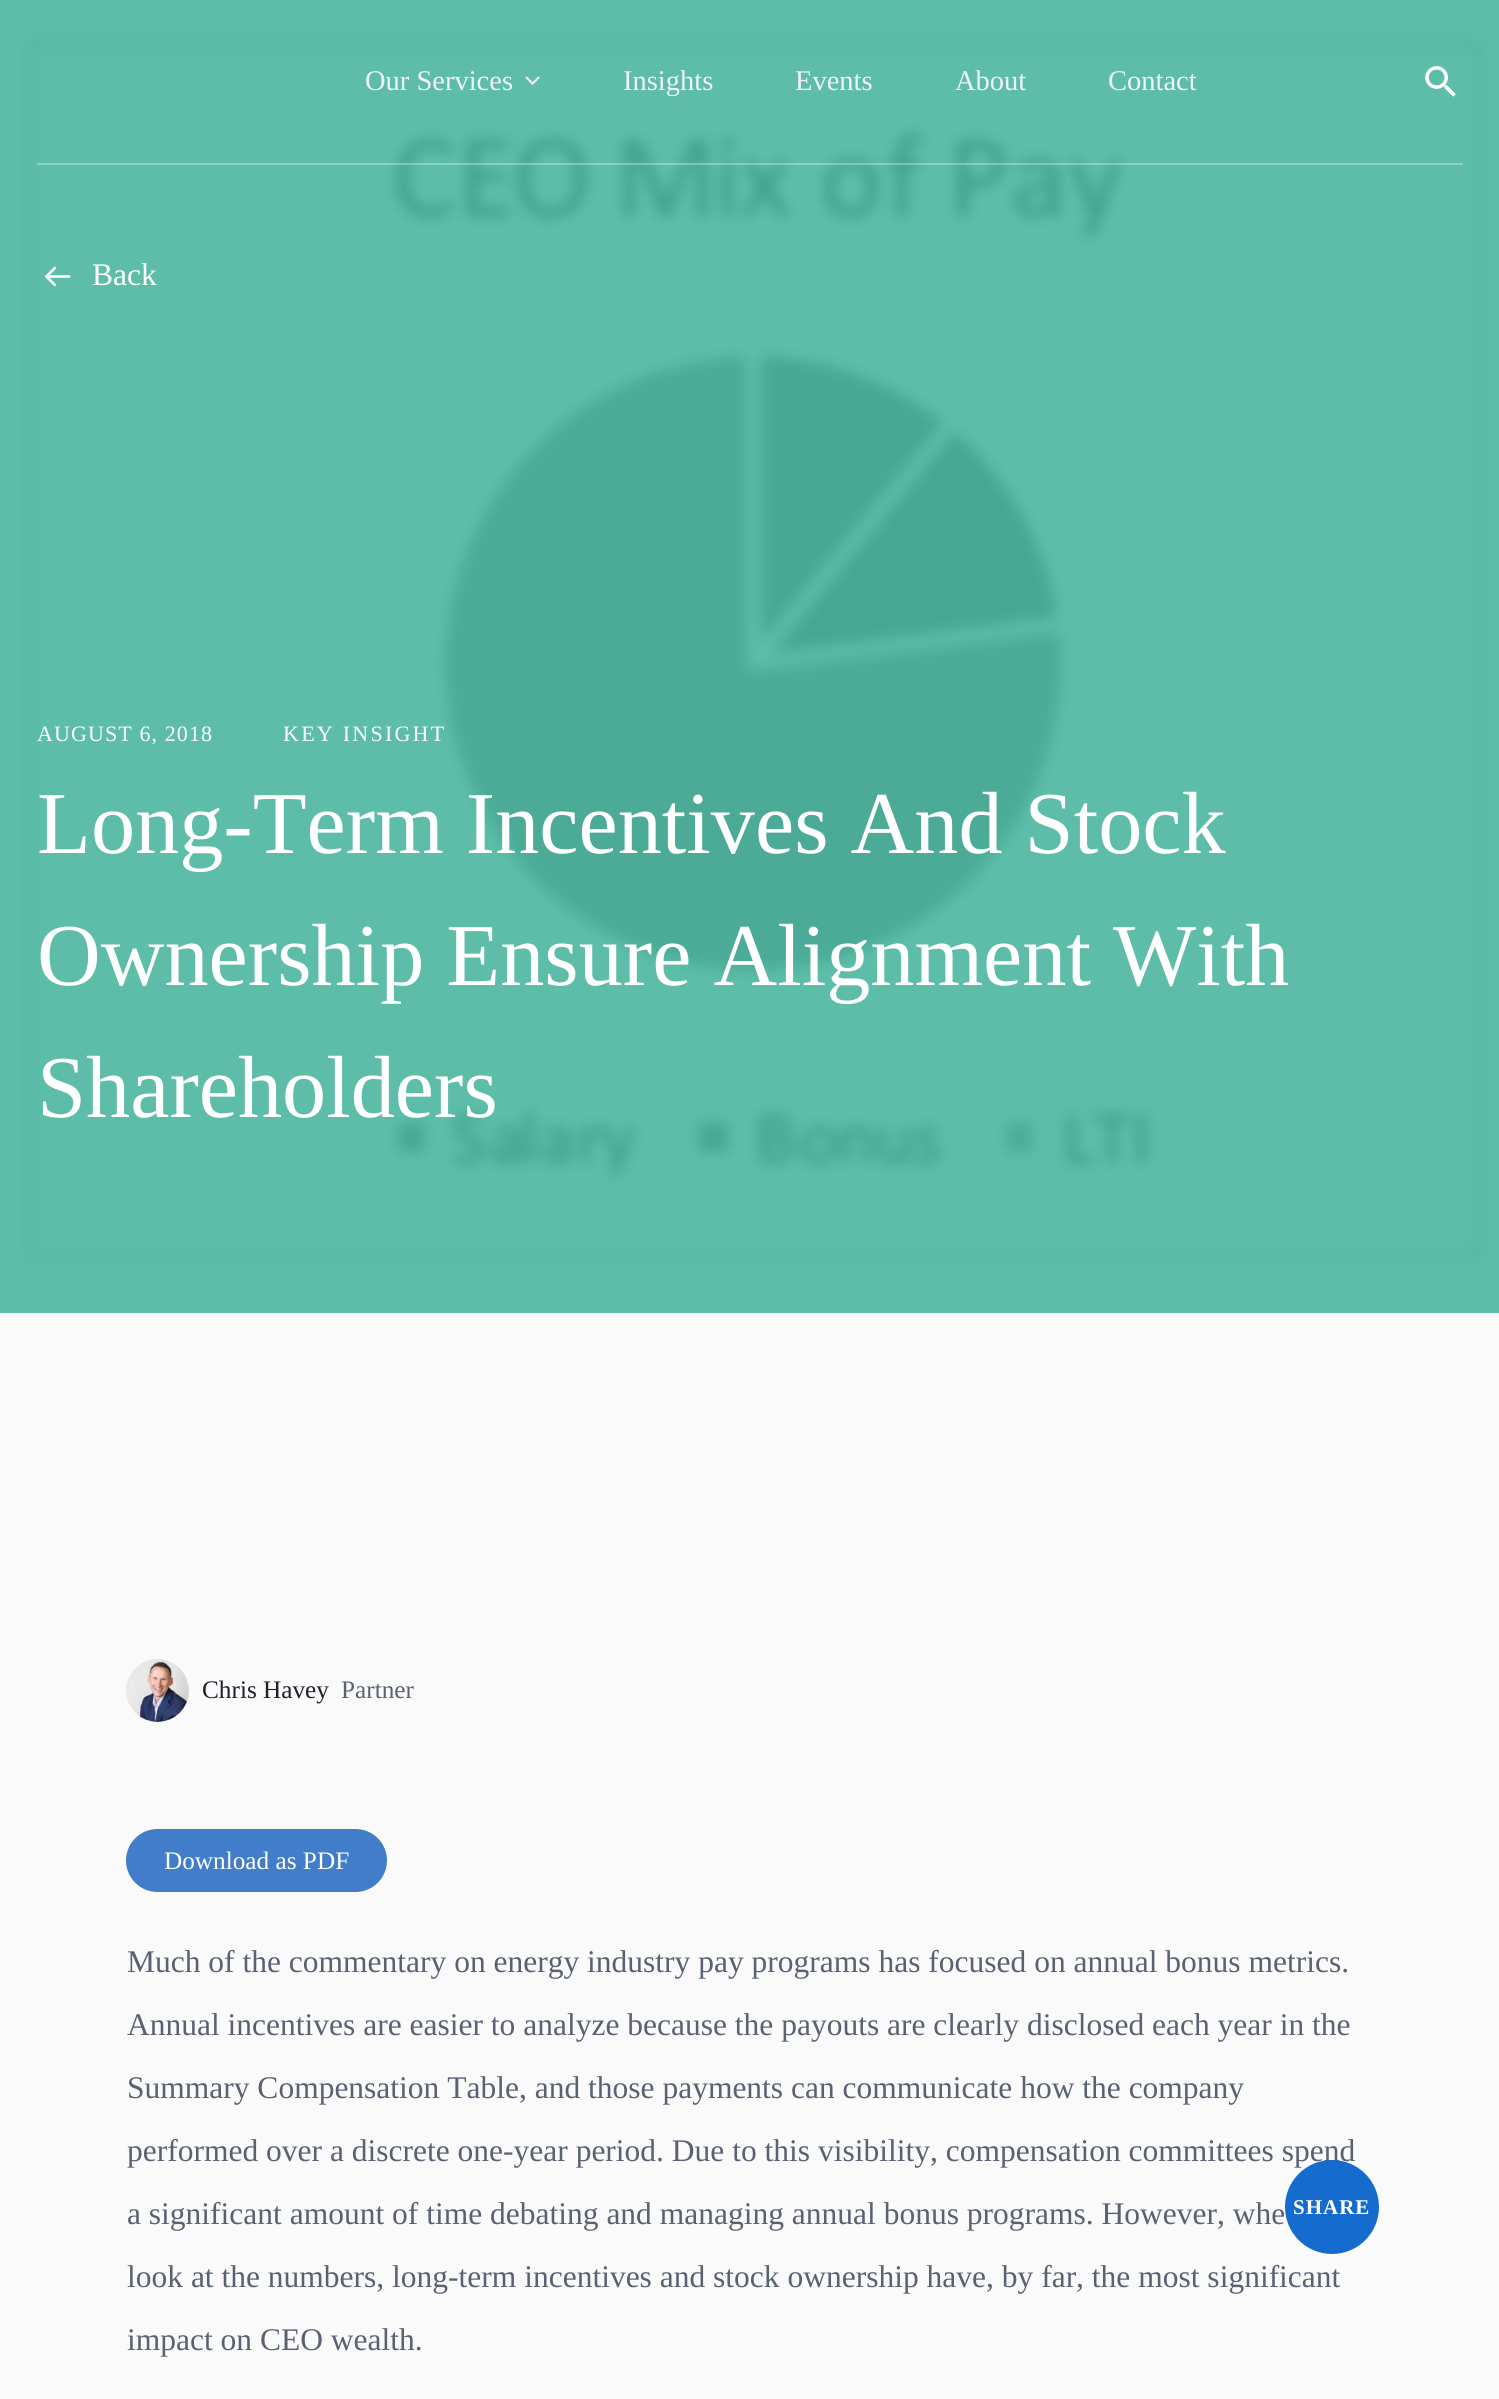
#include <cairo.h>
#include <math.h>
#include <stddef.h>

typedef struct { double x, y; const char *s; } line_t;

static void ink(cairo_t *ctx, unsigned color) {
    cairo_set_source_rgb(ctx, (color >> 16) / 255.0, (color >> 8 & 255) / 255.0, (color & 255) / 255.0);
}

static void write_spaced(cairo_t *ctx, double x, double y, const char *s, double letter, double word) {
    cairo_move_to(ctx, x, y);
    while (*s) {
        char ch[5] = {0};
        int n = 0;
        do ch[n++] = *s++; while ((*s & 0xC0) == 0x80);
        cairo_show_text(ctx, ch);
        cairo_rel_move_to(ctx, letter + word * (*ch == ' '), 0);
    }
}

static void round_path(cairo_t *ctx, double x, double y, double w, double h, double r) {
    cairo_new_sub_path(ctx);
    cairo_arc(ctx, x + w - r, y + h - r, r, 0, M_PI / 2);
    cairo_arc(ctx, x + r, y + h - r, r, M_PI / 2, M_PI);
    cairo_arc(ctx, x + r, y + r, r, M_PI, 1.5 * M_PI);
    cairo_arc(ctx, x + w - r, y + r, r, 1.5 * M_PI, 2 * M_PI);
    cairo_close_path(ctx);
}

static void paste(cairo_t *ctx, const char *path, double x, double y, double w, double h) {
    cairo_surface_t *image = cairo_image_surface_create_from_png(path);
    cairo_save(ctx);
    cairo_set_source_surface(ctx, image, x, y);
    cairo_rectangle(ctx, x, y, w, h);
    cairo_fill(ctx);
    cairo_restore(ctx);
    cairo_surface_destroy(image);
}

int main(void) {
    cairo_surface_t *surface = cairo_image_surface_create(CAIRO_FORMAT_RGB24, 1499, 2399);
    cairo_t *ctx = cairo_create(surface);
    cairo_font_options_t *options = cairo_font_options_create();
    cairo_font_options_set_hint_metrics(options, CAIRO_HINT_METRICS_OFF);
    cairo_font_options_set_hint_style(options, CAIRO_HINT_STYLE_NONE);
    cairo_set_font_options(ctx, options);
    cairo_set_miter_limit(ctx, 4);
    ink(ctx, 0xFAFAFA);
    cairo_paint(ctx);
    ink(ctx, 0x5CBCA8);
    cairo_rectangle(ctx, 0, 0, 1499, 1313);
    cairo_fill(ctx);
    paste(ctx, "media/3.png", 6, 6, 1488, 1301);
    cairo_set_source_rgba(ctx, 1, 1, 1, 0.3);
    cairo_rectangle(ctx, 37, 163, 1426, 2);
    cairo_fill(ctx);
    cairo_select_font_face(ctx, "Liberation Serif", CAIRO_FONT_SLANT_NORMAL, CAIRO_FONT_WEIGHT_NORMAL);
    cairo_set_font_size(ctx, 28.5);
    ink(ctx, 0xEFF2F6);
    cairo_move_to(ctx, 365, 90);
    cairo_show_text(ctx, "Our Services");
    paste(ctx, "media/1.png", 525, 76, 15, 9);
    {
        static const line_t items[] = {
            {623, 90, "Insights"},
            {795, 90, "Events"},
            {955, 90, "About"},
            {1108, 90, "Contact"},
        };
        for (size_t i = 0; i < sizeof items / sizeof *items; i++) {
            cairo_move_to(ctx, items[i].x, items[i].y);
            cairo_show_text(ctx, items[i].s);
        }
    }
    paste(ctx, "media/2.png", 1425, 66, 31, 31);
    paste(ctx, "media/4.png", 45, 266, 26, 21);
    cairo_set_font_size(ctx, 31.5);
    ink(ctx, 0xFFFFFF);
    cairo_move_to(ctx, 92, 285);
    cairo_show_text(ctx, "Back");
    cairo_set_font_size(ctx, 22);
    write_spaced(ctx, 37, 741, "AUGUST 6, 2018", 1.1, 0);
    write_spaced(ctx, 283, 741, "KEY INSIGHT", 2.25, 0);
    cairo_set_font_size(ctx, 88.25);
    {
        static const line_t items[] = {
            {37, 853, "Long-Term Incentives And Stock"},
            {37, 985, "Ownership Ensure Alignment With"},
            {37, 1117, "Shareholders"},
        };
        for (size_t i = 0; i < sizeof items / sizeof *items; i++) {
            cairo_move_to(ctx, items[i].x, items[i].y);
            cairo_show_text(ctx, items[i].s);
        }
    }
    paste(ctx, "media/5.png", 126, 1659, 63, 63);
    cairo_set_font_size(ctx, 25.25);
    ink(ctx, 0x1C202B);
    cairo_move_to(ctx, 202, 1698);
    cairo_show_text(ctx, "Chris Havey");
    ink(ctx, 0x596173);
    cairo_move_to(ctx, 341, 1698);
    cairo_show_text(ctx, "Partner");
    ink(ctx, 0x417DC9);
    round_path(ctx, 126, 1829, 261, 63, 31.5);
    cairo_fill(ctx);
    ink(ctx, 0xFFFFFF);
    cairo_move_to(ctx, 164, 1869);
    cairo_show_text(ctx, "Download as PDF");
    cairo_set_font_size(ctx, 31.5);
    ink(ctx, 0x596173);
    {
        static const line_t items[] = {
            {127, 1972, "Much of the commentary on energy industry pay programs has focused on annual bonus metrics."},
            {127, 2035, "Annual incentives are easier to analyze because the payouts are clearly disclosed each year in the"},
            {127, 2098, "Summary Compensation Table, and those payments can communicate how the company"},
            {127, 2161, "performed over a discrete one-year period. Due to this visibility, compensation committees spend"},
            {127, 2224, "a significant amount of time debating and managing annual bonus programs. However, whe"},
            {127, 2287, "look at the numbers, long-term incentives and stock ownership have, by far, the most significant"},
            {127, 2350, "impact on CEO wealth."},
        };
        for (size_t i = 0; i < sizeof items / sizeof *items; i++) {
            cairo_move_to(ctx, items[i].x, items[i].y);
            cairo_show_text(ctx, items[i].s);
        }
    }
    ink(ctx, 0x156CCE);
    cairo_new_path(ctx);
    cairo_arc(ctx, 1332, 2207, 47, 0, 2 * M_PI);
    cairo_fill(ctx);
    cairo_select_font_face(ctx, "Liberation Serif", CAIRO_FONT_SLANT_NORMAL, CAIRO_FONT_WEIGHT_BOLD);
    cairo_set_font_size(ctx, 21);
    ink(ctx, 0xFFFFFF);
    write_spaced(ctx, 1293, 2214, "SHARE", 1, 0);
    cairo_surface_write_to_png(surface, "image.png");
    cairo_font_options_destroy(options);
    cairo_destroy(ctx);
    cairo_surface_destroy(surface);
    return 0;
}
